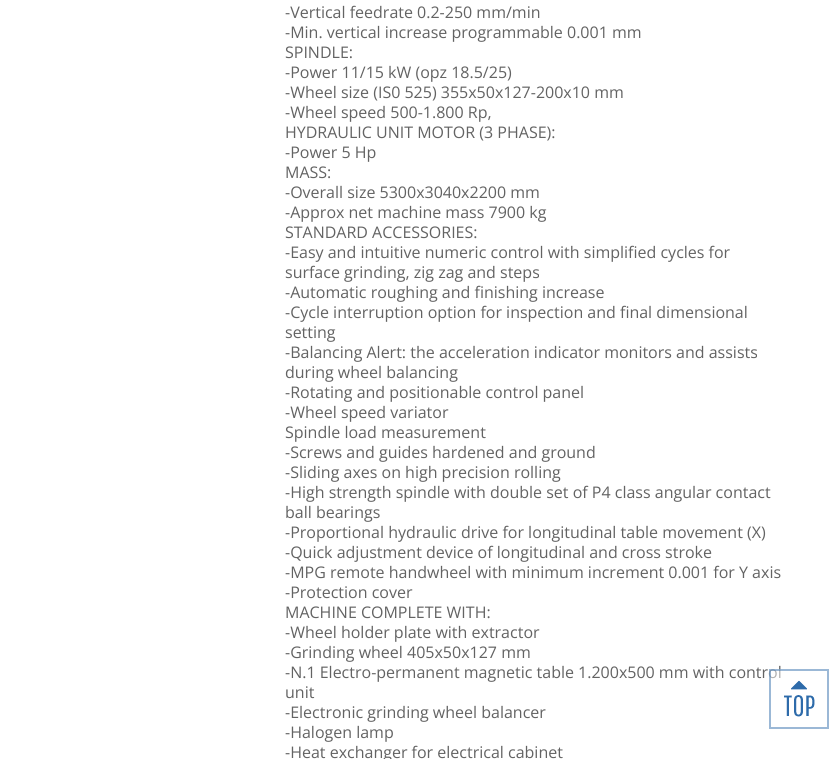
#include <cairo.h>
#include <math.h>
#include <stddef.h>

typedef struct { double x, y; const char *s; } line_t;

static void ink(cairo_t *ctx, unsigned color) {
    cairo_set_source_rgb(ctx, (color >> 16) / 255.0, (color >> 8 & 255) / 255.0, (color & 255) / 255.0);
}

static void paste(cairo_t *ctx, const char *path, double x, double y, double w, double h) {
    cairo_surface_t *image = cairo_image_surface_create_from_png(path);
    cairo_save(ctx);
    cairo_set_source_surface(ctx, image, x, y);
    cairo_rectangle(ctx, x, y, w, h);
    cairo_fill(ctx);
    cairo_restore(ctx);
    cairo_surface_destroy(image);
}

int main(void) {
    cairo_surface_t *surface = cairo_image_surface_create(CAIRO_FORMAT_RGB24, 839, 759);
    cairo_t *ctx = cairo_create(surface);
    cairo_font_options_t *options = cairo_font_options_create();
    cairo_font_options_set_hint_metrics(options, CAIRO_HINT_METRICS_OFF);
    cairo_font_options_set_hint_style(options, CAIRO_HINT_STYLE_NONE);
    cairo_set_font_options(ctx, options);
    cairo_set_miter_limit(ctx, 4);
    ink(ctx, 0xFFFFFF);
    cairo_paint(ctx);
    cairo_select_font_face(ctx, "Open Sans", CAIRO_FONT_SLANT_NORMAL, CAIRO_FONT_WEIGHT_NORMAL);
    cairo_set_font_size(ctx, 16);
    ink(ctx, 0x636363);
    {
        static const line_t items[] = {
            {285, 18, "-Vertical feedrate 0.2-250 mm/min"},
            {285, 38, "-Min. vertical increase programmable 0.001 mm"},
            {285, 58, "SPINDLE:"},
            {285, 78, "-Power 11/15 kW (opz 18.5/25)"},
            {285, 98, "-Wheel size (IS0 525) 355x50x127-200x10 mm"},
            {285, 118, "-Wheel speed 500-1.800 Rp,"},
            {285, 138, "HYDRAULIC UNIT MOTOR (3 PHASE):"},
            {285, 158, "-Power 5 Hp"},
            {285, 178, "MASS:"},
            {285, 198, "-Overall size 5300x3040x2200 mm"},
            {285, 218, "-Approx net machine mass 7900 kg"},
            {285, 238, "STANDARD ACCESSORIES:"},
            {285, 258, "-Easy and intuitive numeric control with simplified cycles for"},
            {285, 278, "surface grinding, zig zag and steps"},
            {285, 298, "-Automatic roughing and finishing increase"},
            {285, 318, "-Cycle interruption option for inspection and final dimensional"},
            {285, 338, "setting"},
            {285, 358, "-Balancing Alert: the acceleration indicator monitors and assists"},
            {285, 378, "during wheel balancing"},
            {285, 398, "-Rotating and positionable control panel"},
            {285, 418, "-Wheel speed variator"},
            {285, 438, "Spindle load measurement"},
            {285, 458, "-Screws and guides hardened and ground"},
            {285, 478, "-Sliding axes on high precision rolling"},
            {285, 498, "-High strength spindle with double set of P4 class angular contact"},
            {285, 518, "ball bearings"},
            {285, 538, "-Proportional hydraulic drive for longitudinal table movement (X)"},
            {285, 558, "-Quick adjustment device of longitudinal and cross stroke"},
            {285, 578, "-MPG remote handwheel with minimum increment 0.001 for Y axis"},
            {285, 598, "-Protection cover"},
            {285, 618, "MACHINE COMPLETE WITH:"},
            {285, 638, "-Wheel holder plate with extractor"},
            {285, 658, "-Grinding wheel 405x50x127 mm"},
            {285, 678, "-N.1 Electro-permanent magnetic table 1.200x500 mm with control"},
            {285, 698, "unit"},
            {285, 718, "-Electronic grinding wheel balancer"},
            {285, 738, "-Halogen lamp"},
            {285, 758, "-Heat exchanger for electrical cabinet"},
        };
        for (size_t i = 0; i < sizeof items / sizeof *items; i++) {
            cairo_move_to(ctx, items[i].x, items[i].y);
            cairo_show_text(ctx, items[i].s);
        }
    }
    paste(ctx, "media/1.png", 769, 669, 60, 60);
    cairo_surface_write_to_png(surface, "image.png");
    cairo_font_options_destroy(options);
    cairo_destroy(ctx);
    cairo_surface_destroy(surface);
    return 0;
}
